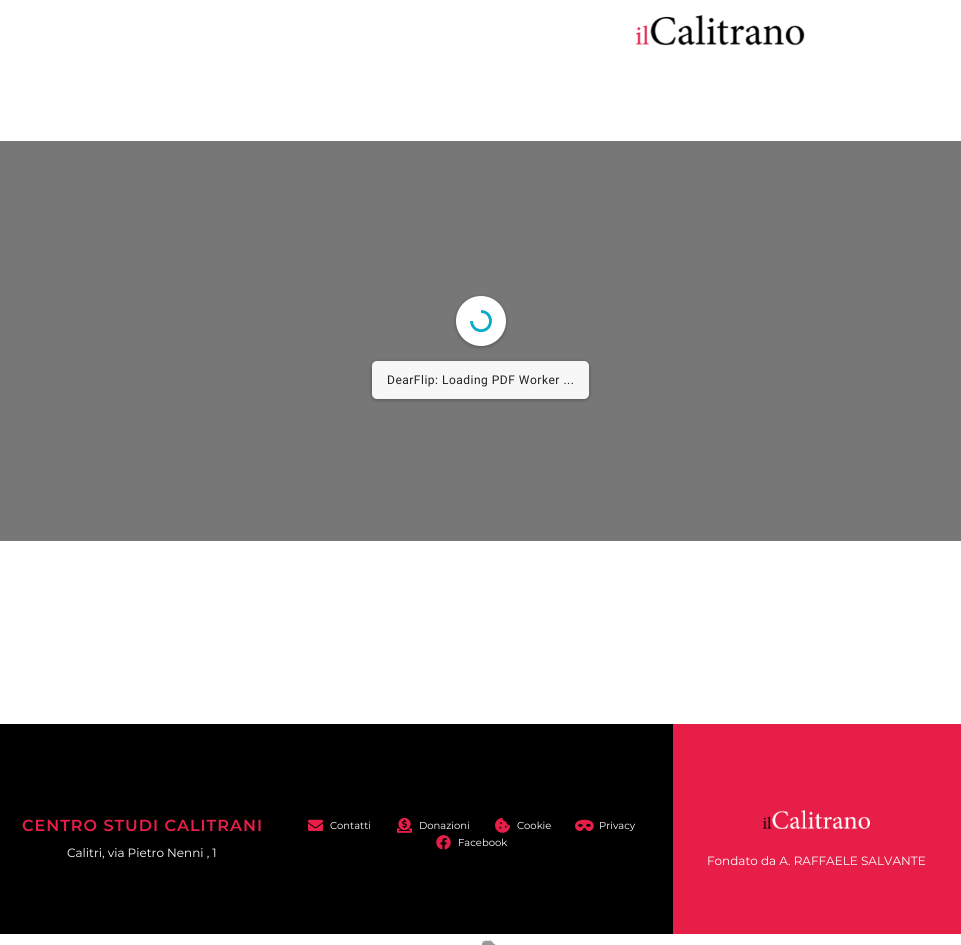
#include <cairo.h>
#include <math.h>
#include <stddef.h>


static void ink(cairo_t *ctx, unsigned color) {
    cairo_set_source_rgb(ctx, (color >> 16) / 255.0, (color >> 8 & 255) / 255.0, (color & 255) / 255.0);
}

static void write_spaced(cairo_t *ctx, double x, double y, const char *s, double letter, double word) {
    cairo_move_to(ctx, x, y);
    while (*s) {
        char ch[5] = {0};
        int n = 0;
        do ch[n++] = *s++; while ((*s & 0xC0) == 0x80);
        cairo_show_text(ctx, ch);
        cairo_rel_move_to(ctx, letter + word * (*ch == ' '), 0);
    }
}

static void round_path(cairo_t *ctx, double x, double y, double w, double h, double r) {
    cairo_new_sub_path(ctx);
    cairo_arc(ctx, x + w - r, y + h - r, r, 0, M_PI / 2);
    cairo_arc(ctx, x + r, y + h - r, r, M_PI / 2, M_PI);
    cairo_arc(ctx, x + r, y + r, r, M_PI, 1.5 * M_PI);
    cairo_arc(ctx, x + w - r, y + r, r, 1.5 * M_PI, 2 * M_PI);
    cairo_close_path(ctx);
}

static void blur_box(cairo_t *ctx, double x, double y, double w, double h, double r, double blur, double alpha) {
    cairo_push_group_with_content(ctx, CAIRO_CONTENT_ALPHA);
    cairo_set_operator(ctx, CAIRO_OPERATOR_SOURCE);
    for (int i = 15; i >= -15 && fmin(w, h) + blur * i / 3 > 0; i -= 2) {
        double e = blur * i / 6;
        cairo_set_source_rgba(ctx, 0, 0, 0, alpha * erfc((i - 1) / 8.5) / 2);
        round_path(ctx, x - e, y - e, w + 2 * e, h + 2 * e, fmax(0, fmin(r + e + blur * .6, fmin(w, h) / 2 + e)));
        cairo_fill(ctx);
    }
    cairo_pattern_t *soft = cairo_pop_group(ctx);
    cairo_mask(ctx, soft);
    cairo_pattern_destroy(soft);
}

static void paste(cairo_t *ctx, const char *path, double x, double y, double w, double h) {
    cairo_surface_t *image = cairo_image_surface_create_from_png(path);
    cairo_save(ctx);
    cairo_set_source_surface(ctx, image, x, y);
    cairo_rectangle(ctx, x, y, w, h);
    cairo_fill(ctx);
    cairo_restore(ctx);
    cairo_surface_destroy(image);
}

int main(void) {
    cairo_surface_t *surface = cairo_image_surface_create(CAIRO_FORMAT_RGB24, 961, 945);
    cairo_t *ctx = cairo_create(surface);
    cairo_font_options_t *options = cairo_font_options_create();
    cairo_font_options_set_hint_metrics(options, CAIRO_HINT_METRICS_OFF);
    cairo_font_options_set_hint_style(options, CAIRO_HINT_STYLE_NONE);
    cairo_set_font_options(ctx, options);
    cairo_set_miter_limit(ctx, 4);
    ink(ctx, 0xFFFFFF);
    cairo_paint(ctx);
    paste(ctx, "media/1.png", 635, 15, 170, 31);
    ink(ctx, 0x777777);
    cairo_rectangle(ctx, 0, 141, 961, 400);
    cairo_fill(ctx);
    ink(ctx, 0x000000);
    blur_box(ctx, 456, 297, 50, 50, 25, 2, 0.3);
    ink(ctx, 0xFFFFFF);
    cairo_arc(ctx, 481, 321, 25, 0, 2 * M_PI);
    cairo_fill(ctx);
    cairo_new_path(ctx);
    cairo_move_to(ctx, 481, 311.5);
    cairo_curve_to(ctx, 492.5, 311.5, 494, 328, 483, 330.5);
    cairo_curve_to(ctx, 480.5, 331, 478, 330.5, 475.5, 329);
    cairo_curve_to(ctx, 473, 327, 471.5, 324, 471.5, 321);
    ink(ctx, 0x07ABCC);
    cairo_set_line_width(ctx, 2.9);
    cairo_stroke(ctx);
    ink(ctx, 0x000000);
    blur_box(ctx, 372, 362, 217, 38, 5, 2, 0.3);
    ink(ctx, 0xF7F7F7);
    round_path(ctx, 372, 361, 217, 38, 5);
    cairo_fill(ctx);
    cairo_select_font_face(ctx, "Roboto", CAIRO_FONT_SLANT_NORMAL, CAIRO_FONT_WEIGHT_NORMAL);
    cairo_set_font_size(ctx, 12);
    ink(ctx, 0x222222);
    write_spaced(ctx, 387, 384, "DearFlip: Loading PDF Worker ...", 0.5, 0);
    ink(ctx, 0x000000);
    cairo_rectangle(ctx, 0, 724, 673, 210);
    cairo_fill(ctx);
    cairo_select_font_face(ctx, "Montserrat SemiBold", CAIRO_FONT_SLANT_NORMAL, CAIRO_FONT_WEIGHT_NORMAL);
    cairo_set_font_size(ctx, 16);
    ink(ctx, 0xE71E48);
    write_spaced(ctx, 22, 831, "CENTRO STUDI CALITRANI", 1, 0);
    cairo_select_font_face(ctx, "Montserrat", CAIRO_FONT_SLANT_NORMAL, CAIRO_FONT_WEIGHT_NORMAL);
    cairo_set_font_size(ctx, 12);
    ink(ctx, 0xFFFFFF);
    cairo_move_to(ctx, 67, 857);
    cairo_show_text(ctx, "Calitri, via Pietro Nenni , 1");
    paste(ctx, "media/2.png", 308, 819, 15, 12);
    cairo_set_font_size(ctx, 10);
    cairo_move_to(ctx, 330, 829);
    cairo_show_text(ctx, "Contatti");
    paste(ctx, "media/3.png", 397, 817, 15, 16);
    cairo_move_to(ctx, 419, 829);
    cairo_show_text(ctx, "Donazioni");
    paste(ctx, "media/4.png", 495, 817, 15, 16);
    cairo_move_to(ctx, 517, 829);
    cairo_show_text(ctx, "Cookie");
    paste(ctx, "media/5.png", 575, 819, 19, 12);
    cairo_move_to(ctx, 599, 829);
    cairo_show_text(ctx, "Privacy");
    paste(ctx, "media/6.png", 436, 835, 15, 15);
    cairo_move_to(ctx, 458, 846);
    cairo_show_text(ctx, "Facebook");
    ink(ctx, 0xE71E48);
    cairo_rectangle(ctx, 673, 724, 288, 210);
    cairo_fill(ctx);
    paste(ctx, "media/7.png", 763, 810, 107, 19);
    cairo_set_font_size(ctx, 12);
    ink(ctx, 0xFFFFFF);
    cairo_move_to(ctx, 707, 865);
    cairo_show_text(ctx, "Fondato da A. RAFFAELE SALVANTE");
    paste(ctx, "media/8.png", 481, 940, 15, 5);
    cairo_surface_write_to_png(surface, "image.png");
    cairo_font_options_destroy(options);
    cairo_destroy(ctx);
    cairo_surface_destroy(surface);
    return 0;
}
